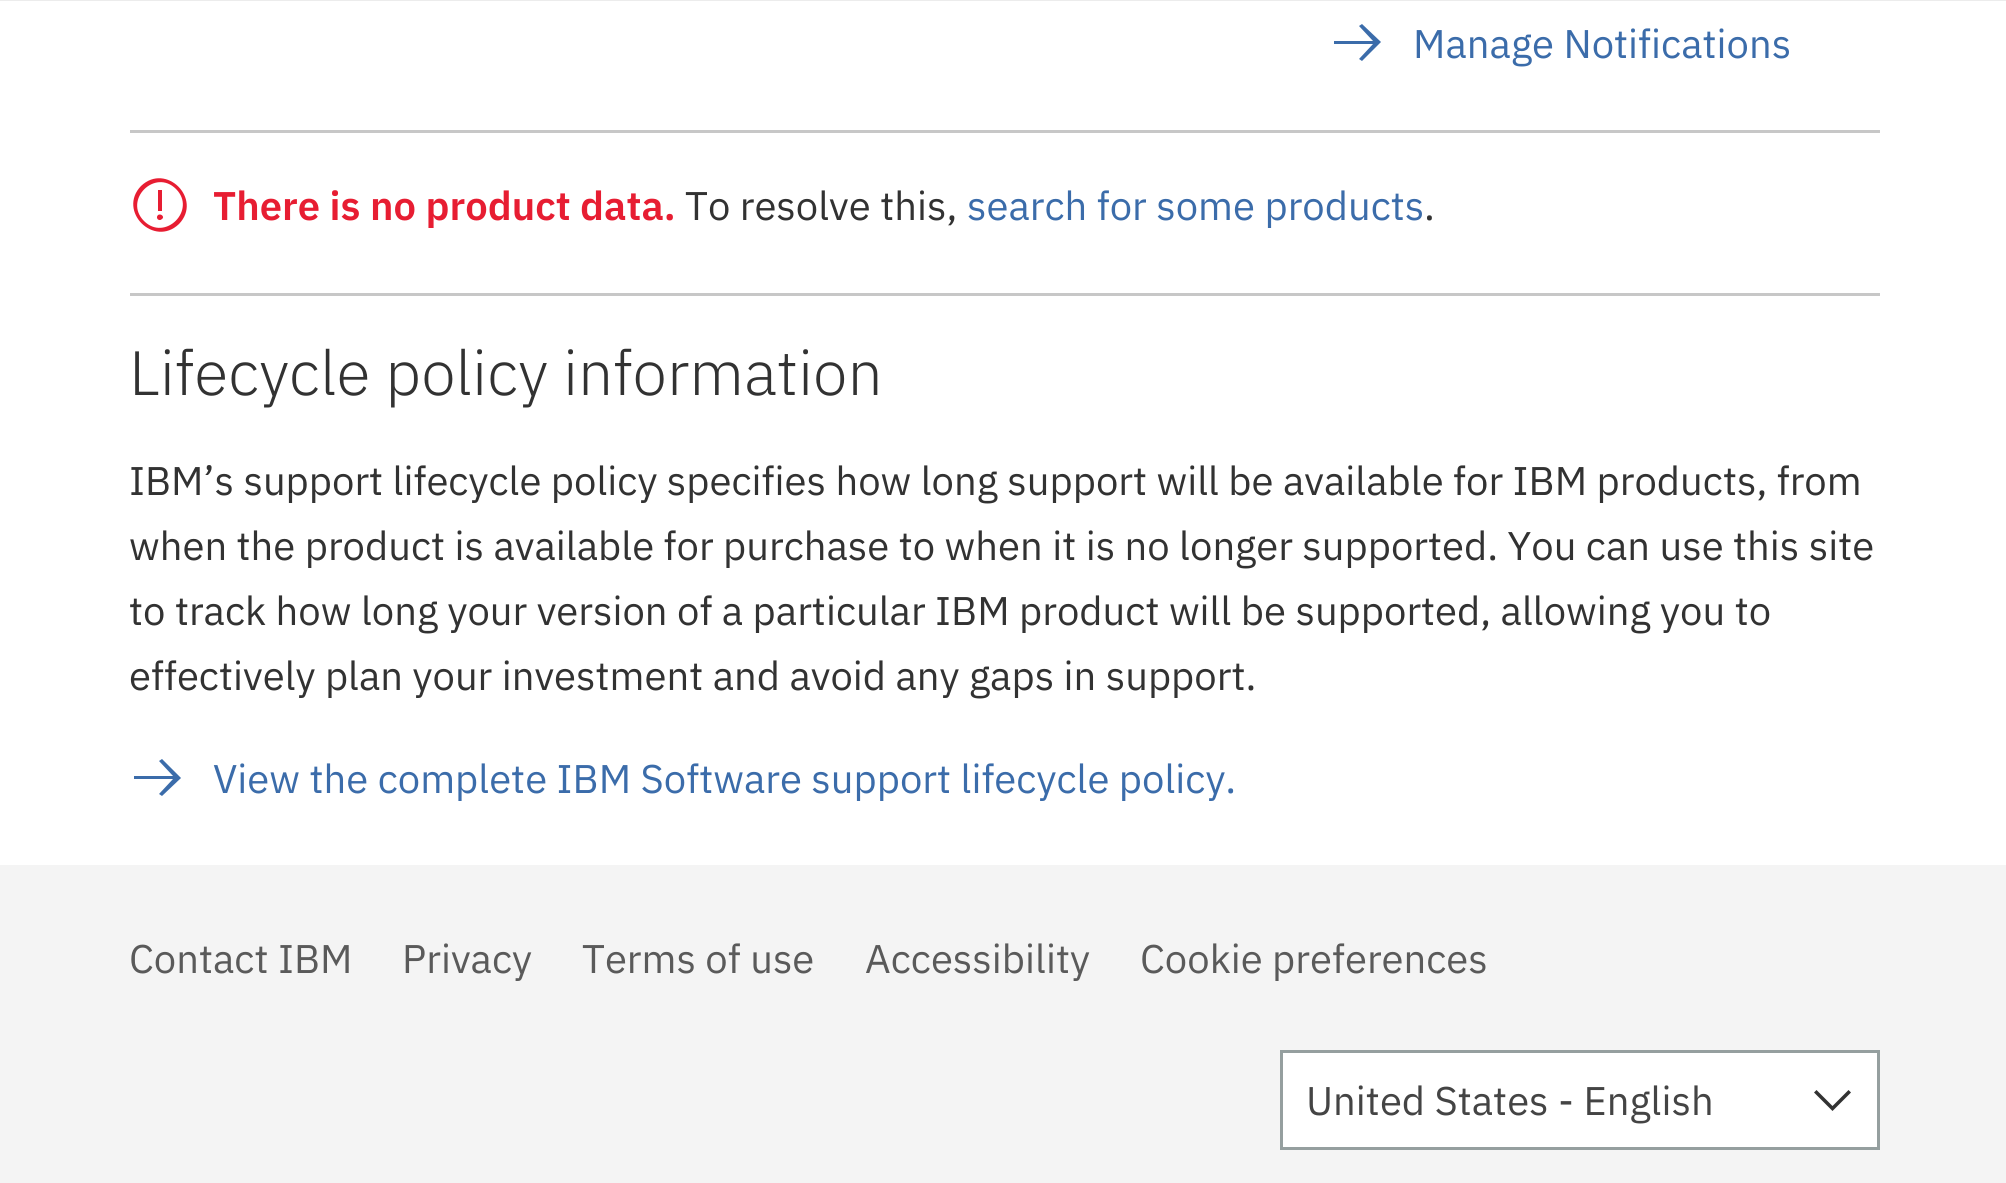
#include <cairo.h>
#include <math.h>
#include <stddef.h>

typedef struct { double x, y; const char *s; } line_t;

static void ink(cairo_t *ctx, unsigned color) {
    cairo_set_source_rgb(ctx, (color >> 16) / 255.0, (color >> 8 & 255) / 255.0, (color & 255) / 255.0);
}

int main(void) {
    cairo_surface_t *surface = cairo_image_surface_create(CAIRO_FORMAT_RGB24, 2006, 1183);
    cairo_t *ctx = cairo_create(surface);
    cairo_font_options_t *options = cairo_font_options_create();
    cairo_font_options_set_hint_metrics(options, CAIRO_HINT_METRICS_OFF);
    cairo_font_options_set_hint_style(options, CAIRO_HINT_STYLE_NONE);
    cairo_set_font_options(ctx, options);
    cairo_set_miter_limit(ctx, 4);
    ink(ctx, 0xFFFFFF);
    cairo_paint(ctx);
    ink(ctx, 0xECECEC);
    cairo_rectangle(ctx, 0, 0, 2006, 1);
    cairo_fill(ctx);
    ink(ctx, 0x3B6CAA);
    cairo_new_path(ctx);
    cairo_move_to(ctx, 1362, 24);
    cairo_line_to(ctx, 1381, 42);
    cairo_line_to(ctx, 1362, 61);
    cairo_line_to(ctx, 1359, 59);
    cairo_line_to(ctx, 1373, 44);
    cairo_line_to(ctx, 1334, 44);
    cairo_line_to(ctx, 1334, 41);
    cairo_line_to(ctx, 1373, 41);
    cairo_line_to(ctx, 1359, 26);
    cairo_close_path(ctx);
    cairo_fill(ctx);
    cairo_select_font_face(ctx, "IBM Plex Sans", CAIRO_FONT_SLANT_NORMAL, CAIRO_FONT_WEIGHT_NORMAL);
    cairo_set_font_size(ctx, 40);
    cairo_move_to(ctx, 1413, 58);
    cairo_show_text(ctx, "Manage Notifications");
    ink(ctx, 0xC7C7C7);
    cairo_rectangle(ctx, 130, 130, 1750, 3);
    cairo_fill(ctx);
    ink(ctx, 0xE71D32);
    cairo_new_path(ctx);
    cairo_move_to(ctx, 141, 186);
    cairo_curve_to(ctx, 166, 162, 203, 199, 179, 224);
    cairo_curve_to(ctx, 154, 248, 117, 211, 141, 186);
    cairo_close_path(ctx);
    cairo_move_to(ctx, 144, 221);
    cairo_curve_to(ctx, 165, 242, 197, 210, 176, 189);
    cairo_curve_to(ctx, 155, 168, 123, 200, 144, 221);
    cairo_close_path(ctx);
    cairo_move_to(ctx, 158, 211);
    cairo_line_to(ctx, 158, 190);
    cairo_line_to(ctx, 162, 190);
    cairo_line_to(ctx, 162, 211);
    cairo_close_path(ctx);
    cairo_move_to(ctx, 158, 215);
    cairo_curve_to(ctx, 161, 213, 165, 217, 162, 219);
    cairo_curve_to(ctx, 159, 222, 155, 218, 158, 215);
    cairo_close_path(ctx);
    cairo_fill(ctx);
    cairo_select_font_face(ctx, "IBM Plex Sans SemiBold", CAIRO_FONT_SLANT_NORMAL, CAIRO_FONT_WEIGHT_NORMAL);
    cairo_move_to(ctx, 213, 220);
    cairo_show_text(ctx, "There is no product data.");
    cairo_select_font_face(ctx, "IBM Plex Sans", CAIRO_FONT_SLANT_NORMAL, CAIRO_FONT_WEIGHT_NORMAL);
    ink(ctx, 0x323232);
    cairo_move_to(ctx, 685, 220);
    cairo_show_text(ctx, "To resolve this,");
    ink(ctx, 0x3B6CAA);
    cairo_move_to(ctx, 967, 220);
    cairo_show_text(ctx, "search for some products");
    ink(ctx, 0x323232);
    cairo_move_to(ctx, 1424, 220);
    cairo_show_text(ctx, ".");
    ink(ctx, 0xC7C7C7);
    cairo_rectangle(ctx, 130, 293, 1750, 3);
    cairo_fill(ctx);
    cairo_select_font_face(ctx, "IBM Plex Sans Light", CAIRO_FONT_SLANT_NORMAL, CAIRO_FONT_WEIGHT_NORMAL);
    cairo_set_font_size(ctx, 62.5);
    ink(ctx, 0x323232);
    cairo_move_to(ctx, 129, 395);
    cairo_show_text(ctx, "Lifecycle policy information");
    cairo_select_font_face(ctx, "IBM Plex Sans", CAIRO_FONT_SLANT_NORMAL, CAIRO_FONT_WEIGHT_NORMAL);
    cairo_set_font_size(ctx, 40);
    {
        static const line_t items[] = {
            {129, 495, "IBM’s support lifecycle policy specifies how long support will be available for IBM products, from"},
            {129, 560, "when the product is available for purchase to when it is no longer supported. You can use this site"},
            {129, 625, "to track how long your version of a particular IBM product will be supported, allowing you to"},
            {129, 690, "effectively plan your investment and avoid any gaps in support."},
        };
        for (size_t i = 0; i < sizeof items / sizeof *items; i++) {
            cairo_move_to(ctx, items[i].x, items[i].y);
            cairo_show_text(ctx, items[i].s);
        }
    }
    ink(ctx, 0x3B6CAA);
    cairo_new_path(ctx);
    cairo_move_to(ctx, 162, 759);
    cairo_line_to(ctx, 181, 778);
    cairo_line_to(ctx, 162, 796);
    cairo_line_to(ctx, 159, 794);
    cairo_line_to(ctx, 173, 779);
    cairo_line_to(ctx, 134, 779);
    cairo_line_to(ctx, 134, 776);
    cairo_line_to(ctx, 173, 776);
    cairo_line_to(ctx, 159, 761);
    cairo_close_path(ctx);
    cairo_fill(ctx);
    cairo_move_to(ctx, 213, 793);
    cairo_show_text(ctx, "View the complete IBM Software support lifecycle policy.");
    ink(ctx, 0xF4F4F4);
    cairo_rectangle(ctx, 0, 865, 2006, 318);
    cairo_fill(ctx);
    ink(ctx, 0x5A5A5A);
    {
        static const line_t items[] = {
            {129, 973, "Contact IBM"},
            {402, 973, "Privacy"},
            {582, 973, "Terms of use"},
            {865, 973, "Accessibility"},
            {1140, 973, "Cookie preferences"},
        };
        for (size_t i = 0; i < sizeof items / sizeof *items; i++) {
            cairo_move_to(ctx, items[i].x, items[i].y);
            cairo_show_text(ctx, items[i].s);
        }
    }
    ink(ctx, 0xFFFFFF);
    cairo_rectangle(ctx, 1281.5, 1051.5, 597, 97);
    cairo_fill_preserve(ctx);
    ink(ctx, 0x959F9F);
    cairo_set_line_width(ctx, 3);
    cairo_stroke(ctx);
    ink(ctx, 0x444444);
    cairo_move_to(ctx, 1306, 1115);
    cairo_show_text(ctx, "United States - English");
    ink(ctx, 0x323232);
    cairo_new_path(ctx);
    cairo_move_to(ctx, 1832.5, 1111);
    cairo_line_to(ctx, 1814, 1092.5);
    cairo_line_to(ctx, 1816.5, 1090);
    cairo_line_to(ctx, 1832.5, 1106);
    cairo_line_to(ctx, 1848.5, 1090);
    cairo_line_to(ctx, 1851, 1092.5);
    cairo_close_path(ctx);
    cairo_fill(ctx);
    cairo_surface_write_to_png(surface, "image.png");
    cairo_font_options_destroy(options);
    cairo_destroy(ctx);
    cairo_surface_destroy(surface);
    return 0;
}
